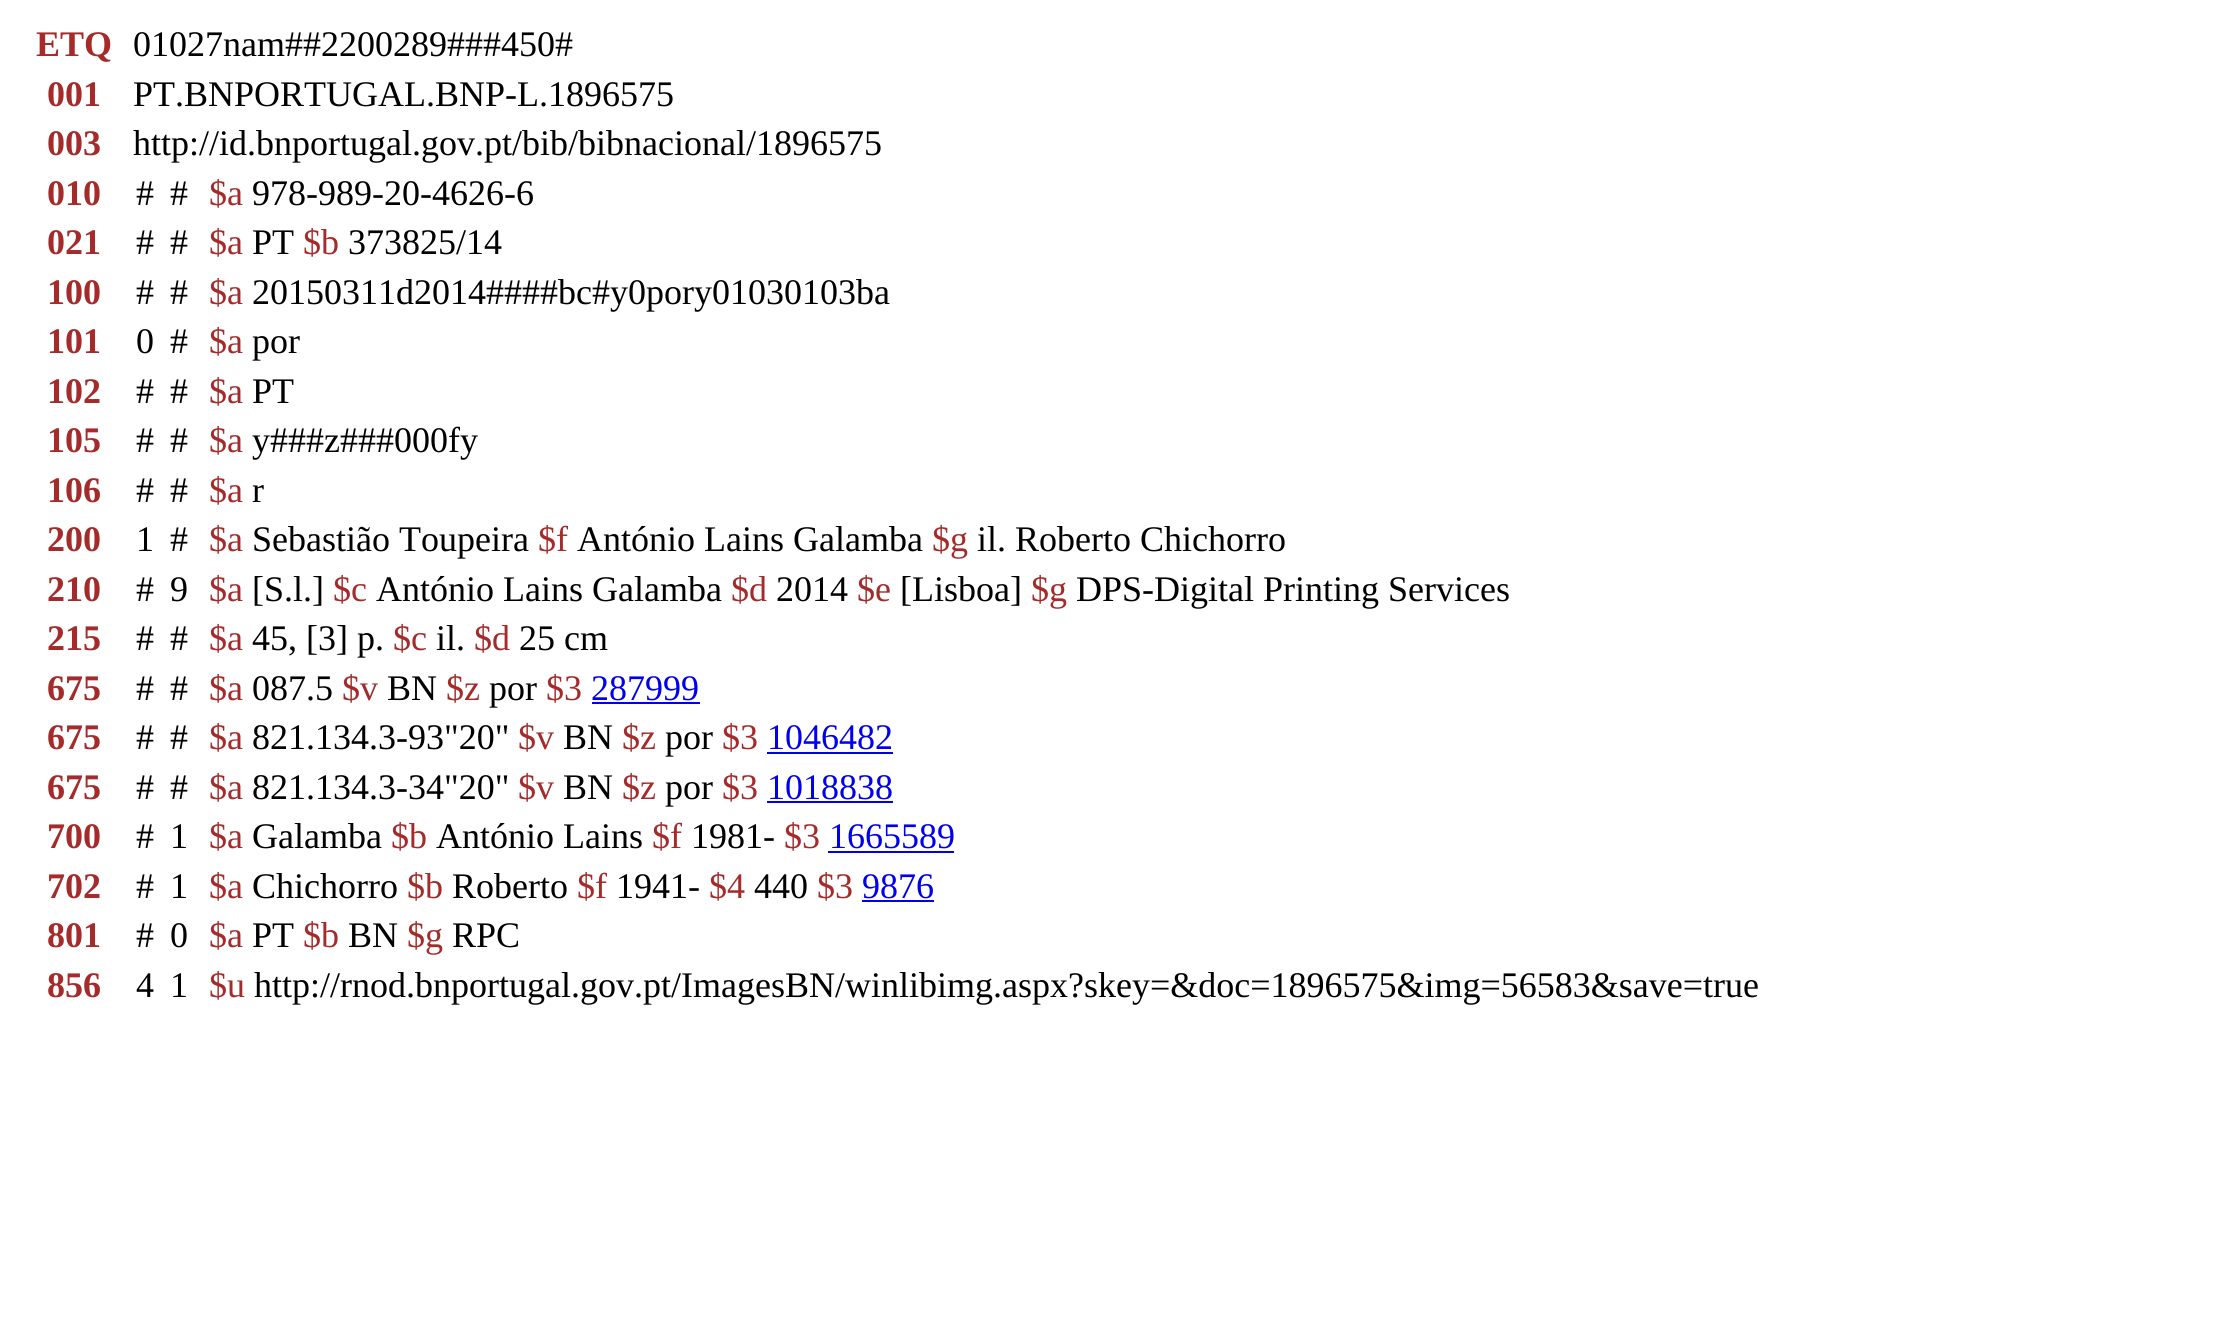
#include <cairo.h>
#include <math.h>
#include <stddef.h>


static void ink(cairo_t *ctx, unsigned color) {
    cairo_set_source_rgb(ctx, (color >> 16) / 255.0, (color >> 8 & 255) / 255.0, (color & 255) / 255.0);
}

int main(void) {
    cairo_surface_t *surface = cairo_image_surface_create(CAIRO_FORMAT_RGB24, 2234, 1338);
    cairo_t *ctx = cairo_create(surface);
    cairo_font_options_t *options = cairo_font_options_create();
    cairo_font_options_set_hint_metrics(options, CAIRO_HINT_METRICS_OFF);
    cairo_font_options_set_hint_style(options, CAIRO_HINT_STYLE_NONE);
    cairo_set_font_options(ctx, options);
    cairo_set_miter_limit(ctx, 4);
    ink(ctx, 0xFFFFFF);
    cairo_paint(ctx);
    cairo_select_font_face(ctx, "Liberation Serif", CAIRO_FONT_SLANT_NORMAL, CAIRO_FONT_WEIGHT_BOLD);
    cairo_set_font_size(ctx, 36);
    ink(ctx, 0xA52A2A);
    cairo_move_to(ctx, 36, 56);
    cairo_show_text(ctx, "ETQ");
    cairo_select_font_face(ctx, "Liberation Serif", CAIRO_FONT_SLANT_NORMAL, CAIRO_FONT_WEIGHT_NORMAL);
    ink(ctx, 0x000000);
    cairo_move_to(ctx, 133, 56);
    cairo_show_text(ctx, "01027nam##2200289###450#");
    cairo_select_font_face(ctx, "Liberation Serif", CAIRO_FONT_SLANT_NORMAL, CAIRO_FONT_WEIGHT_BOLD);
    ink(ctx, 0xA52A2A);
    cairo_move_to(ctx, 47, 106);
    cairo_show_text(ctx, "001");
    cairo_select_font_face(ctx, "Liberation Serif", CAIRO_FONT_SLANT_NORMAL, CAIRO_FONT_WEIGHT_NORMAL);
    ink(ctx, 0x000000);
    cairo_move_to(ctx, 133, 106);
    cairo_show_text(ctx, "PT.BNPORTUGAL.BNP-L.1896575");
    cairo_select_font_face(ctx, "Liberation Serif", CAIRO_FONT_SLANT_NORMAL, CAIRO_FONT_WEIGHT_BOLD);
    ink(ctx, 0xA52A2A);
    cairo_move_to(ctx, 47, 155);
    cairo_show_text(ctx, "003");
    cairo_select_font_face(ctx, "Liberation Serif", CAIRO_FONT_SLANT_NORMAL, CAIRO_FONT_WEIGHT_NORMAL);
    ink(ctx, 0x000000);
    cairo_move_to(ctx, 133, 155);
    cairo_show_text(ctx, "http://id.bnportugal.gov.pt/bib/bibnacional/1896575");
    cairo_select_font_face(ctx, "Liberation Serif", CAIRO_FONT_SLANT_NORMAL, CAIRO_FONT_WEIGHT_BOLD);
    ink(ctx, 0xA52A2A);
    cairo_move_to(ctx, 47, 205);
    cairo_show_text(ctx, "010");
    cairo_select_font_face(ctx, "Liberation Serif", CAIRO_FONT_SLANT_NORMAL, CAIRO_FONT_WEIGHT_NORMAL);
    ink(ctx, 0x000000);
    cairo_move_to(ctx, 136, 205);
    cairo_show_text(ctx, "#");
    cairo_move_to(ctx, 170, 205);
    cairo_show_text(ctx, "#");
    ink(ctx, 0xA52A2A);
    cairo_move_to(ctx, 209, 205);
    cairo_show_text(ctx, "$a");
    ink(ctx, 0x000000);
    cairo_move_to(ctx, 252, 205);
    cairo_show_text(ctx, "978-989-20-4626-6");
    cairo_select_font_face(ctx, "Liberation Serif", CAIRO_FONT_SLANT_NORMAL, CAIRO_FONT_WEIGHT_BOLD);
    ink(ctx, 0xA52A2A);
    cairo_move_to(ctx, 47, 254);
    cairo_show_text(ctx, "021");
    cairo_select_font_face(ctx, "Liberation Serif", CAIRO_FONT_SLANT_NORMAL, CAIRO_FONT_WEIGHT_NORMAL);
    ink(ctx, 0x000000);
    cairo_move_to(ctx, 136, 254);
    cairo_show_text(ctx, "#");
    cairo_move_to(ctx, 170, 254);
    cairo_show_text(ctx, "#");
    ink(ctx, 0xA52A2A);
    cairo_move_to(ctx, 209, 254);
    cairo_show_text(ctx, "$a");
    ink(ctx, 0x000000);
    cairo_move_to(ctx, 252, 254);
    cairo_show_text(ctx, "PT");
    ink(ctx, 0xA52A2A);
    cairo_move_to(ctx, 303, 254);
    cairo_show_text(ctx, "$b");
    ink(ctx, 0x000000);
    cairo_move_to(ctx, 348, 254);
    cairo_show_text(ctx, "373825/14");
    cairo_select_font_face(ctx, "Liberation Serif", CAIRO_FONT_SLANT_NORMAL, CAIRO_FONT_WEIGHT_BOLD);
    ink(ctx, 0xA52A2A);
    cairo_move_to(ctx, 47, 304);
    cairo_show_text(ctx, "100");
    cairo_select_font_face(ctx, "Liberation Serif", CAIRO_FONT_SLANT_NORMAL, CAIRO_FONT_WEIGHT_NORMAL);
    ink(ctx, 0x000000);
    cairo_move_to(ctx, 136, 304);
    cairo_show_text(ctx, "#");
    cairo_move_to(ctx, 170, 304);
    cairo_show_text(ctx, "#");
    ink(ctx, 0xA52A2A);
    cairo_move_to(ctx, 209, 304);
    cairo_show_text(ctx, "$a");
    ink(ctx, 0x000000);
    cairo_move_to(ctx, 252, 304);
    cairo_show_text(ctx, "20150311d2014####bc#y0pory01030103ba");
    cairo_select_font_face(ctx, "Liberation Serif", CAIRO_FONT_SLANT_NORMAL, CAIRO_FONT_WEIGHT_BOLD);
    ink(ctx, 0xA52A2A);
    cairo_move_to(ctx, 47, 353);
    cairo_show_text(ctx, "101");
    cairo_select_font_face(ctx, "Liberation Serif", CAIRO_FONT_SLANT_NORMAL, CAIRO_FONT_WEIGHT_NORMAL);
    ink(ctx, 0x000000);
    cairo_move_to(ctx, 136, 353);
    cairo_show_text(ctx, "0");
    cairo_move_to(ctx, 170, 353);
    cairo_show_text(ctx, "#");
    ink(ctx, 0xA52A2A);
    cairo_move_to(ctx, 209, 353);
    cairo_show_text(ctx, "$a");
    ink(ctx, 0x000000);
    cairo_move_to(ctx, 252, 353);
    cairo_show_text(ctx, "por");
    cairo_select_font_face(ctx, "Liberation Serif", CAIRO_FONT_SLANT_NORMAL, CAIRO_FONT_WEIGHT_BOLD);
    ink(ctx, 0xA52A2A);
    cairo_move_to(ctx, 47, 403);
    cairo_show_text(ctx, "102");
    cairo_select_font_face(ctx, "Liberation Serif", CAIRO_FONT_SLANT_NORMAL, CAIRO_FONT_WEIGHT_NORMAL);
    ink(ctx, 0x000000);
    cairo_move_to(ctx, 136, 403);
    cairo_show_text(ctx, "#");
    cairo_move_to(ctx, 170, 403);
    cairo_show_text(ctx, "#");
    ink(ctx, 0xA52A2A);
    cairo_move_to(ctx, 209, 403);
    cairo_show_text(ctx, "$a");
    ink(ctx, 0x000000);
    cairo_move_to(ctx, 252, 403);
    cairo_show_text(ctx, "PT");
    cairo_select_font_face(ctx, "Liberation Serif", CAIRO_FONT_SLANT_NORMAL, CAIRO_FONT_WEIGHT_BOLD);
    ink(ctx, 0xA52A2A);
    cairo_move_to(ctx, 47, 452);
    cairo_show_text(ctx, "105");
    cairo_select_font_face(ctx, "Liberation Serif", CAIRO_FONT_SLANT_NORMAL, CAIRO_FONT_WEIGHT_NORMAL);
    ink(ctx, 0x000000);
    cairo_move_to(ctx, 136, 452);
    cairo_show_text(ctx, "#");
    cairo_move_to(ctx, 170, 452);
    cairo_show_text(ctx, "#");
    ink(ctx, 0xA52A2A);
    cairo_move_to(ctx, 209, 452);
    cairo_show_text(ctx, "$a");
    ink(ctx, 0x000000);
    cairo_move_to(ctx, 252, 452);
    cairo_show_text(ctx, "y###z###000fy");
    cairo_select_font_face(ctx, "Liberation Serif", CAIRO_FONT_SLANT_NORMAL, CAIRO_FONT_WEIGHT_BOLD);
    ink(ctx, 0xA52A2A);
    cairo_move_to(ctx, 47, 502);
    cairo_show_text(ctx, "106");
    cairo_select_font_face(ctx, "Liberation Serif", CAIRO_FONT_SLANT_NORMAL, CAIRO_FONT_WEIGHT_NORMAL);
    ink(ctx, 0x000000);
    cairo_move_to(ctx, 136, 502);
    cairo_show_text(ctx, "#");
    cairo_move_to(ctx, 170, 502);
    cairo_show_text(ctx, "#");
    ink(ctx, 0xA52A2A);
    cairo_move_to(ctx, 209, 502);
    cairo_show_text(ctx, "$a");
    ink(ctx, 0x000000);
    cairo_move_to(ctx, 252, 502);
    cairo_show_text(ctx, "r");
    cairo_select_font_face(ctx, "Liberation Serif", CAIRO_FONT_SLANT_NORMAL, CAIRO_FONT_WEIGHT_BOLD);
    ink(ctx, 0xA52A2A);
    cairo_move_to(ctx, 47, 551);
    cairo_show_text(ctx, "200");
    cairo_select_font_face(ctx, "Liberation Serif", CAIRO_FONT_SLANT_NORMAL, CAIRO_FONT_WEIGHT_NORMAL);
    ink(ctx, 0x000000);
    cairo_move_to(ctx, 136, 551);
    cairo_show_text(ctx, "1");
    cairo_move_to(ctx, 170, 551);
    cairo_show_text(ctx, "#");
    ink(ctx, 0xA52A2A);
    cairo_move_to(ctx, 209, 551);
    cairo_show_text(ctx, "$a");
    ink(ctx, 0x000000);
    cairo_move_to(ctx, 252, 551);
    cairo_show_text(ctx, "Sebastião Toupeira");
    ink(ctx, 0xA52A2A);
    cairo_move_to(ctx, 538, 551);
    cairo_show_text(ctx, "$f");
    ink(ctx, 0x000000);
    cairo_move_to(ctx, 577, 551);
    cairo_show_text(ctx, "António Lains Galamba");
    ink(ctx, 0xA52A2A);
    cairo_move_to(ctx, 932, 551);
    cairo_show_text(ctx, "$g");
    ink(ctx, 0x000000);
    cairo_move_to(ctx, 977, 551);
    cairo_show_text(ctx, "il. Roberto Chichorro");
    cairo_select_font_face(ctx, "Liberation Serif", CAIRO_FONT_SLANT_NORMAL, CAIRO_FONT_WEIGHT_BOLD);
    ink(ctx, 0xA52A2A);
    cairo_move_to(ctx, 47, 601);
    cairo_show_text(ctx, "210");
    cairo_select_font_face(ctx, "Liberation Serif", CAIRO_FONT_SLANT_NORMAL, CAIRO_FONT_WEIGHT_NORMAL);
    ink(ctx, 0x000000);
    cairo_move_to(ctx, 136, 601);
    cairo_show_text(ctx, "#");
    cairo_move_to(ctx, 170, 601);
    cairo_show_text(ctx, "9");
    ink(ctx, 0xA52A2A);
    cairo_move_to(ctx, 209, 601);
    cairo_show_text(ctx, "$a");
    ink(ctx, 0x000000);
    cairo_move_to(ctx, 252, 601);
    cairo_show_text(ctx, "[S.l.]");
    ink(ctx, 0xA52A2A);
    cairo_move_to(ctx, 333, 601);
    cairo_show_text(ctx, "$c");
    ink(ctx, 0x000000);
    cairo_move_to(ctx, 376, 601);
    cairo_show_text(ctx, "António Lains Galamba");
    ink(ctx, 0xA52A2A);
    cairo_move_to(ctx, 731, 601);
    cairo_show_text(ctx, "$d");
    ink(ctx, 0x000000);
    cairo_move_to(ctx, 776, 601);
    cairo_show_text(ctx, "2014");
    ink(ctx, 0xA52A2A);
    cairo_move_to(ctx, 857, 601);
    cairo_show_text(ctx, "$e");
    ink(ctx, 0x000000);
    cairo_move_to(ctx, 900, 601);
    cairo_show_text(ctx, "[Lisboa]");
    ink(ctx, 0xA52A2A);
    cairo_move_to(ctx, 1031, 601);
    cairo_show_text(ctx, "$g");
    ink(ctx, 0x000000);
    cairo_move_to(ctx, 1076, 601);
    cairo_show_text(ctx, "DPS-Digital Printing Services");
    cairo_select_font_face(ctx, "Liberation Serif", CAIRO_FONT_SLANT_NORMAL, CAIRO_FONT_WEIGHT_BOLD);
    ink(ctx, 0xA52A2A);
    cairo_move_to(ctx, 47, 650);
    cairo_show_text(ctx, "215");
    cairo_select_font_face(ctx, "Liberation Serif", CAIRO_FONT_SLANT_NORMAL, CAIRO_FONT_WEIGHT_NORMAL);
    ink(ctx, 0x000000);
    cairo_move_to(ctx, 136, 650);
    cairo_show_text(ctx, "#");
    cairo_move_to(ctx, 170, 650);
    cairo_show_text(ctx, "#");
    ink(ctx, 0xA52A2A);
    cairo_move_to(ctx, 209, 650);
    cairo_show_text(ctx, "$a");
    ink(ctx, 0x000000);
    cairo_move_to(ctx, 252, 650);
    cairo_show_text(ctx, "45, [3] p.");
    ink(ctx, 0xA52A2A);
    cairo_move_to(ctx, 393, 650);
    cairo_show_text(ctx, "$c");
    ink(ctx, 0x000000);
    cairo_move_to(ctx, 436, 650);
    cairo_show_text(ctx, "il.");
    ink(ctx, 0xA52A2A);
    cairo_move_to(ctx, 474, 650);
    cairo_show_text(ctx, "$d");
    ink(ctx, 0x000000);
    cairo_move_to(ctx, 519, 650);
    cairo_show_text(ctx, "25 cm");
    cairo_select_font_face(ctx, "Liberation Serif", CAIRO_FONT_SLANT_NORMAL, CAIRO_FONT_WEIGHT_BOLD);
    ink(ctx, 0xA52A2A);
    cairo_move_to(ctx, 47, 700);
    cairo_show_text(ctx, "675");
    cairo_select_font_face(ctx, "Liberation Serif", CAIRO_FONT_SLANT_NORMAL, CAIRO_FONT_WEIGHT_NORMAL);
    ink(ctx, 0x000000);
    cairo_move_to(ctx, 136, 700);
    cairo_show_text(ctx, "#");
    cairo_move_to(ctx, 170, 700);
    cairo_show_text(ctx, "#");
    ink(ctx, 0xA52A2A);
    cairo_move_to(ctx, 209, 700);
    cairo_show_text(ctx, "$a");
    ink(ctx, 0x000000);
    cairo_move_to(ctx, 252, 700);
    cairo_show_text(ctx, "087.5");
    ink(ctx, 0xA52A2A);
    cairo_move_to(ctx, 342, 700);
    cairo_show_text(ctx, "$v");
    ink(ctx, 0x000000);
    cairo_move_to(ctx, 387, 700);
    cairo_show_text(ctx, "BN");
    ink(ctx, 0xA52A2A);
    cairo_move_to(ctx, 446, 700);
    cairo_show_text(ctx, "$z");
    ink(ctx, 0x000000);
    cairo_move_to(ctx, 489, 700);
    cairo_show_text(ctx, "por");
    ink(ctx, 0xA52A2A);
    cairo_move_to(ctx, 546, 700);
    cairo_show_text(ctx, "$3");
    ink(ctx, 0x0000EE);
    cairo_move_to(ctx, 591, 700);
    cairo_show_text(ctx, "287999");
    cairo_rectangle(ctx, 592, 702, 108, 2);
    cairo_fill(ctx);
    cairo_select_font_face(ctx, "Liberation Serif", CAIRO_FONT_SLANT_NORMAL, CAIRO_FONT_WEIGHT_BOLD);
    ink(ctx, 0xA52A2A);
    cairo_move_to(ctx, 47, 749);
    cairo_show_text(ctx, "675");
    cairo_select_font_face(ctx, "Liberation Serif", CAIRO_FONT_SLANT_NORMAL, CAIRO_FONT_WEIGHT_NORMAL);
    ink(ctx, 0x000000);
    cairo_move_to(ctx, 136, 749);
    cairo_show_text(ctx, "#");
    cairo_move_to(ctx, 170, 749);
    cairo_show_text(ctx, "#");
    ink(ctx, 0xA52A2A);
    cairo_move_to(ctx, 209, 749);
    cairo_show_text(ctx, "$a");
    ink(ctx, 0x000000);
    cairo_move_to(ctx, 252, 749);
    cairo_show_text(ctx, "821.134.3-93\"20\"");
    ink(ctx, 0xA52A2A);
    cairo_move_to(ctx, 518, 749);
    cairo_show_text(ctx, "$v");
    ink(ctx, 0x000000);
    cairo_move_to(ctx, 563, 749);
    cairo_show_text(ctx, "BN");
    ink(ctx, 0xA52A2A);
    cairo_move_to(ctx, 622, 749);
    cairo_show_text(ctx, "$z");
    ink(ctx, 0x000000);
    cairo_move_to(ctx, 665, 749);
    cairo_show_text(ctx, "por");
    ink(ctx, 0xA52A2A);
    cairo_move_to(ctx, 722, 749);
    cairo_show_text(ctx, "$3");
    ink(ctx, 0x0000EE);
    cairo_move_to(ctx, 767, 749);
    cairo_show_text(ctx, "1046482");
    cairo_rectangle(ctx, 767, 752, 126, 2);
    cairo_fill(ctx);
    cairo_select_font_face(ctx, "Liberation Serif", CAIRO_FONT_SLANT_NORMAL, CAIRO_FONT_WEIGHT_BOLD);
    ink(ctx, 0xA52A2A);
    cairo_move_to(ctx, 47, 799);
    cairo_show_text(ctx, "675");
    cairo_select_font_face(ctx, "Liberation Serif", CAIRO_FONT_SLANT_NORMAL, CAIRO_FONT_WEIGHT_NORMAL);
    ink(ctx, 0x000000);
    cairo_move_to(ctx, 136, 799);
    cairo_show_text(ctx, "#");
    cairo_move_to(ctx, 170, 799);
    cairo_show_text(ctx, "#");
    ink(ctx, 0xA52A2A);
    cairo_move_to(ctx, 209, 799);
    cairo_show_text(ctx, "$a");
    ink(ctx, 0x000000);
    cairo_move_to(ctx, 252, 799);
    cairo_show_text(ctx, "821.134.3-34\"20\"");
    ink(ctx, 0xA52A2A);
    cairo_move_to(ctx, 518, 799);
    cairo_show_text(ctx, "$v");
    ink(ctx, 0x000000);
    cairo_move_to(ctx, 563, 799);
    cairo_show_text(ctx, "BN");
    ink(ctx, 0xA52A2A);
    cairo_move_to(ctx, 622, 799);
    cairo_show_text(ctx, "$z");
    ink(ctx, 0x000000);
    cairo_move_to(ctx, 665, 799);
    cairo_show_text(ctx, "por");
    ink(ctx, 0xA52A2A);
    cairo_move_to(ctx, 722, 799);
    cairo_show_text(ctx, "$3");
    ink(ctx, 0x0000EE);
    cairo_move_to(ctx, 767, 799);
    cairo_show_text(ctx, "1018838");
    cairo_rectangle(ctx, 767, 801, 126, 2);
    cairo_fill(ctx);
    cairo_select_font_face(ctx, "Liberation Serif", CAIRO_FONT_SLANT_NORMAL, CAIRO_FONT_WEIGHT_BOLD);
    ink(ctx, 0xA52A2A);
    cairo_move_to(ctx, 47, 848);
    cairo_show_text(ctx, "700");
    cairo_select_font_face(ctx, "Liberation Serif", CAIRO_FONT_SLANT_NORMAL, CAIRO_FONT_WEIGHT_NORMAL);
    ink(ctx, 0x000000);
    cairo_move_to(ctx, 136, 848);
    cairo_show_text(ctx, "#");
    cairo_move_to(ctx, 170, 848);
    cairo_show_text(ctx, "1");
    ink(ctx, 0xA52A2A);
    cairo_move_to(ctx, 209, 848);
    cairo_show_text(ctx, "$a");
    ink(ctx, 0x000000);
    cairo_move_to(ctx, 252, 848);
    cairo_show_text(ctx, "Galamba");
    ink(ctx, 0xA52A2A);
    cairo_move_to(ctx, 391, 848);
    cairo_show_text(ctx, "$b");
    ink(ctx, 0x000000);
    cairo_move_to(ctx, 436, 848);
    cairo_show_text(ctx, "António Lains");
    ink(ctx, 0xA52A2A);
    cairo_move_to(ctx, 652, 848);
    cairo_show_text(ctx, "$f");
    ink(ctx, 0x000000);
    cairo_move_to(ctx, 691, 848);
    cairo_show_text(ctx, "1981-");
    ink(ctx, 0xA52A2A);
    cairo_move_to(ctx, 784, 848);
    cairo_show_text(ctx, "$3");
    ink(ctx, 0x0000EE);
    cairo_move_to(ctx, 829, 848);
    cairo_show_text(ctx, "1665589");
    cairo_rectangle(ctx, 828, 851, 126, 2);
    cairo_fill(ctx);
    cairo_select_font_face(ctx, "Liberation Serif", CAIRO_FONT_SLANT_NORMAL, CAIRO_FONT_WEIGHT_BOLD);
    ink(ctx, 0xA52A2A);
    cairo_move_to(ctx, 47, 898);
    cairo_show_text(ctx, "702");
    cairo_select_font_face(ctx, "Liberation Serif", CAIRO_FONT_SLANT_NORMAL, CAIRO_FONT_WEIGHT_NORMAL);
    ink(ctx, 0x000000);
    cairo_move_to(ctx, 136, 898);
    cairo_show_text(ctx, "#");
    cairo_move_to(ctx, 170, 898);
    cairo_show_text(ctx, "1");
    ink(ctx, 0xA52A2A);
    cairo_move_to(ctx, 209, 898);
    cairo_show_text(ctx, "$a");
    ink(ctx, 0x000000);
    cairo_move_to(ctx, 252, 898);
    cairo_show_text(ctx, "Chichorro");
    ink(ctx, 0xA52A2A);
    cairo_move_to(ctx, 407, 898);
    cairo_show_text(ctx, "$b");
    ink(ctx, 0x000000);
    cairo_move_to(ctx, 452, 898);
    cairo_show_text(ctx, "Roberto");
    ink(ctx, 0xA52A2A);
    cairo_move_to(ctx, 577, 898);
    cairo_show_text(ctx, "$f");
    ink(ctx, 0x000000);
    cairo_move_to(ctx, 616, 898);
    cairo_show_text(ctx, "1941-");
    ink(ctx, 0xA52A2A);
    cairo_move_to(ctx, 709, 898);
    cairo_show_text(ctx, "$4");
    ink(ctx, 0x000000);
    cairo_move_to(ctx, 754, 898);
    cairo_show_text(ctx, "440");
    ink(ctx, 0xA52A2A);
    cairo_move_to(ctx, 817, 898);
    cairo_show_text(ctx, "$3");
    ink(ctx, 0x0000EE);
    cairo_move_to(ctx, 862, 898);
    cairo_show_text(ctx, "9876");
    cairo_rectangle(ctx, 862, 900, 72, 2);
    cairo_fill(ctx);
    cairo_select_font_face(ctx, "Liberation Serif", CAIRO_FONT_SLANT_NORMAL, CAIRO_FONT_WEIGHT_BOLD);
    ink(ctx, 0xA52A2A);
    cairo_move_to(ctx, 47, 947);
    cairo_show_text(ctx, "801");
    cairo_select_font_face(ctx, "Liberation Serif", CAIRO_FONT_SLANT_NORMAL, CAIRO_FONT_WEIGHT_NORMAL);
    ink(ctx, 0x000000);
    cairo_move_to(ctx, 136, 947);
    cairo_show_text(ctx, "#");
    cairo_move_to(ctx, 170, 947);
    cairo_show_text(ctx, "0");
    ink(ctx, 0xA52A2A);
    cairo_move_to(ctx, 209, 947);
    cairo_show_text(ctx, "$a");
    ink(ctx, 0x000000);
    cairo_move_to(ctx, 252, 947);
    cairo_show_text(ctx, "PT");
    ink(ctx, 0xA52A2A);
    cairo_move_to(ctx, 303, 947);
    cairo_show_text(ctx, "$b");
    ink(ctx, 0x000000);
    cairo_move_to(ctx, 348, 947);
    cairo_show_text(ctx, "BN");
    ink(ctx, 0xA52A2A);
    cairo_move_to(ctx, 407, 947);
    cairo_show_text(ctx, "$g");
    ink(ctx, 0x000000);
    cairo_move_to(ctx, 452, 947);
    cairo_show_text(ctx, "RPC");
    cairo_select_font_face(ctx, "Liberation Serif", CAIRO_FONT_SLANT_NORMAL, CAIRO_FONT_WEIGHT_BOLD);
    ink(ctx, 0xA52A2A);
    cairo_move_to(ctx, 47, 997);
    cairo_show_text(ctx, "856");
    cairo_select_font_face(ctx, "Liberation Serif", CAIRO_FONT_SLANT_NORMAL, CAIRO_FONT_WEIGHT_NORMAL);
    ink(ctx, 0x000000);
    cairo_move_to(ctx, 136, 997);
    cairo_show_text(ctx, "4");
    cairo_move_to(ctx, 170, 997);
    cairo_show_text(ctx, "1");
    ink(ctx, 0xA52A2A);
    cairo_move_to(ctx, 209, 997);
    cairo_show_text(ctx, "$u");
    ink(ctx, 0x000000);
    cairo_move_to(ctx, 254, 997);
    cairo_show_text(ctx, "http://rnod.bnportugal.gov.pt/ImagesBN/winlibimg.aspx?skey=&doc=1896575&img=56583&save=true");
    cairo_surface_write_to_png(surface, "image.png");
    cairo_font_options_destroy(options);
    cairo_destroy(ctx);
    cairo_surface_destroy(surface);
    return 0;
}
